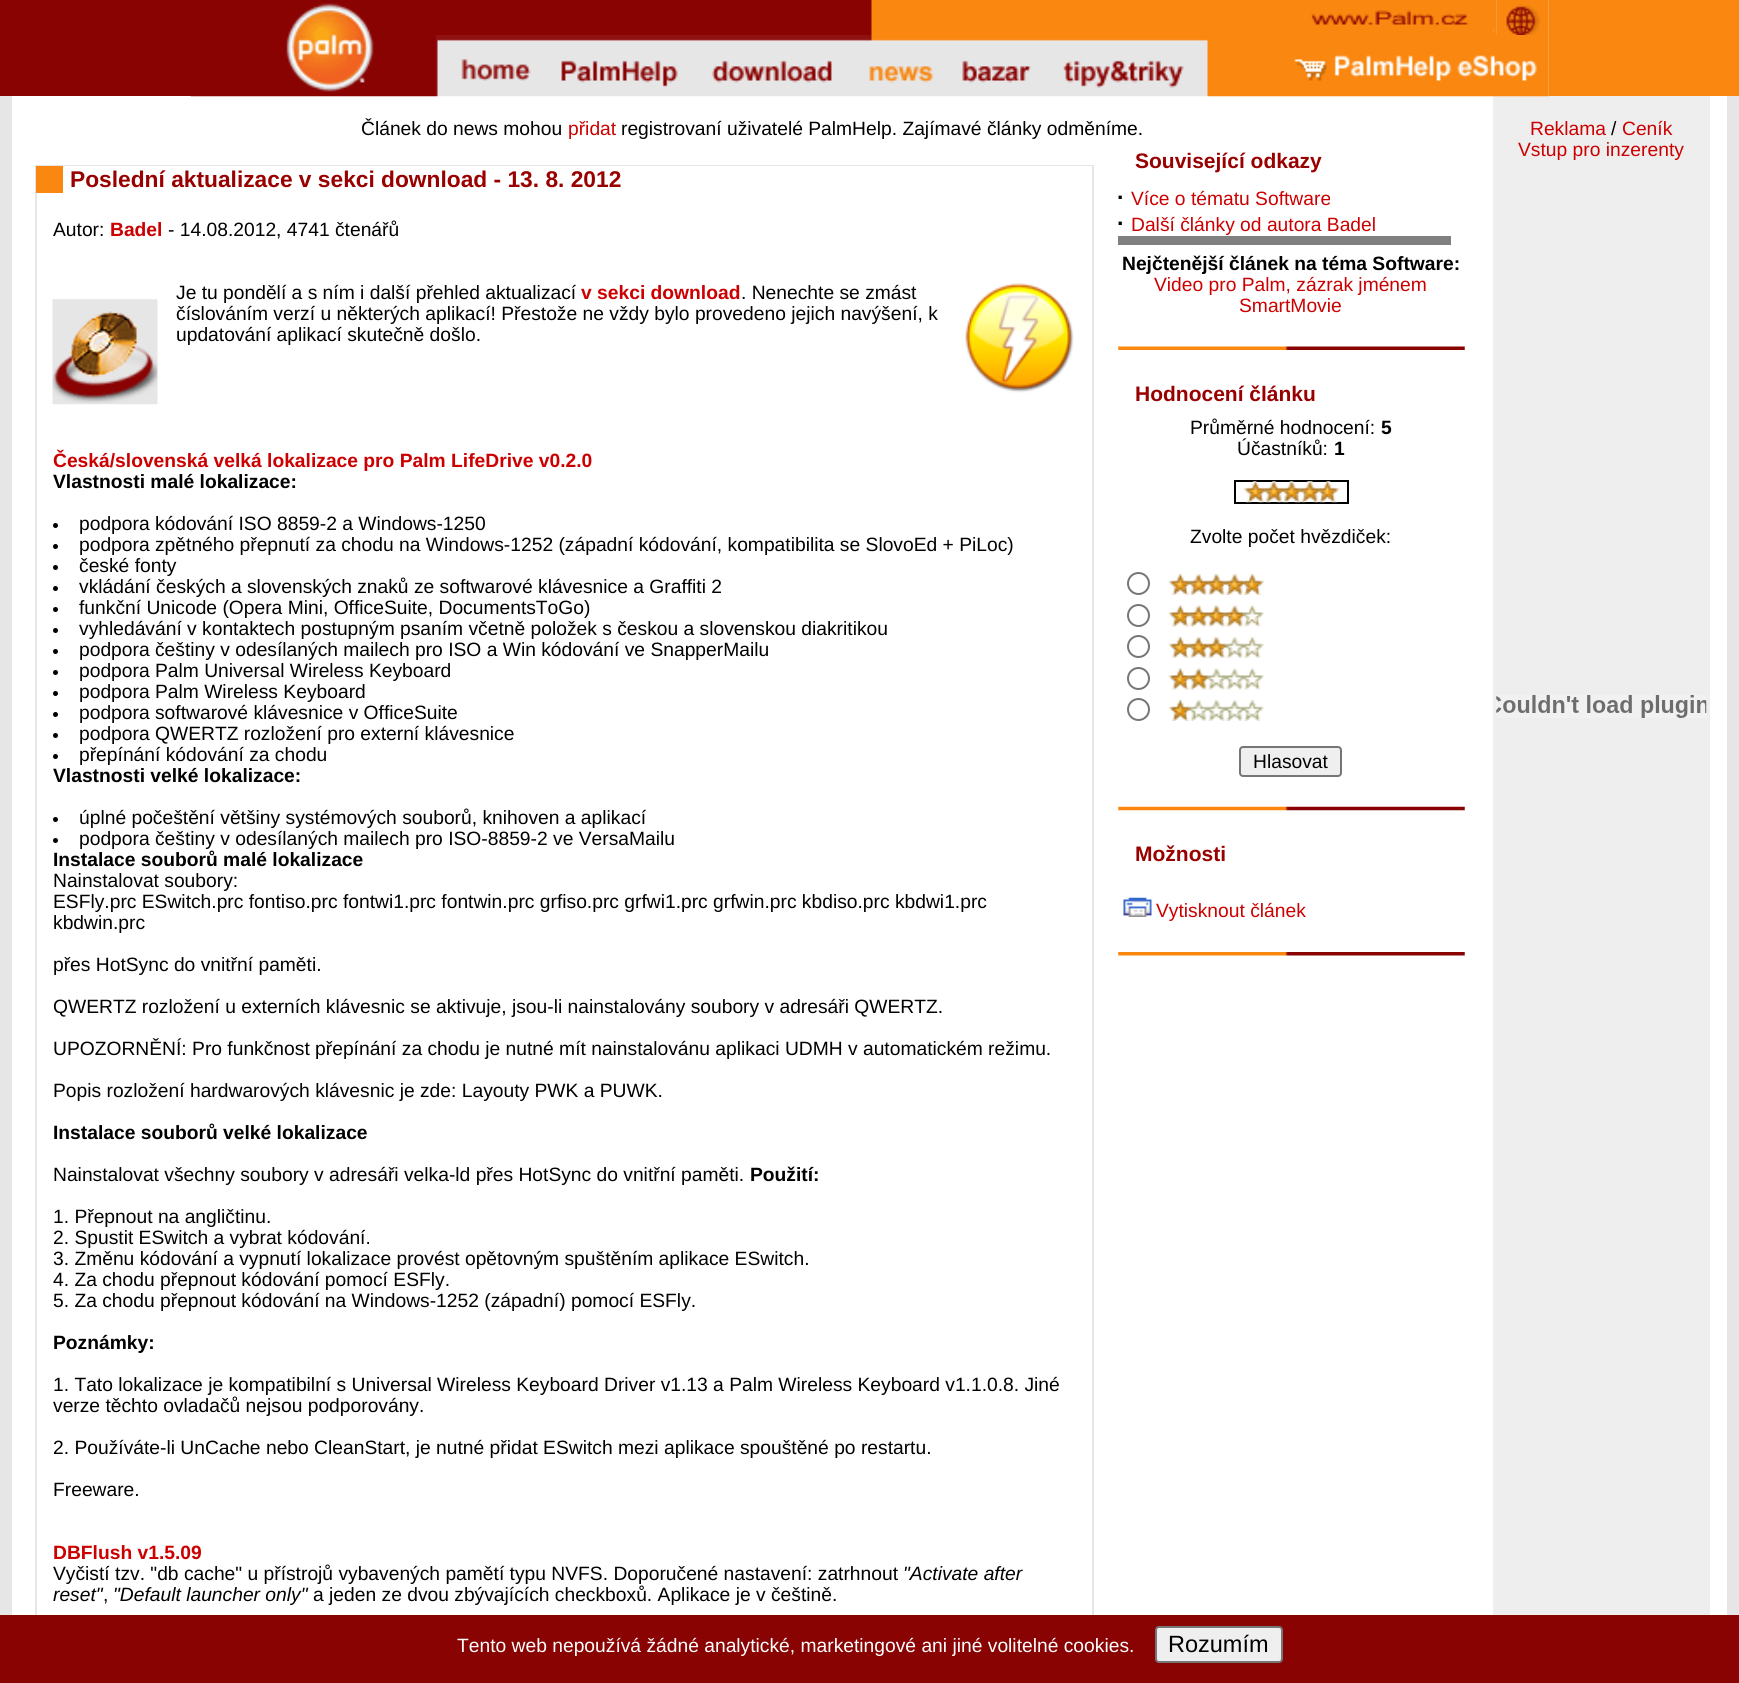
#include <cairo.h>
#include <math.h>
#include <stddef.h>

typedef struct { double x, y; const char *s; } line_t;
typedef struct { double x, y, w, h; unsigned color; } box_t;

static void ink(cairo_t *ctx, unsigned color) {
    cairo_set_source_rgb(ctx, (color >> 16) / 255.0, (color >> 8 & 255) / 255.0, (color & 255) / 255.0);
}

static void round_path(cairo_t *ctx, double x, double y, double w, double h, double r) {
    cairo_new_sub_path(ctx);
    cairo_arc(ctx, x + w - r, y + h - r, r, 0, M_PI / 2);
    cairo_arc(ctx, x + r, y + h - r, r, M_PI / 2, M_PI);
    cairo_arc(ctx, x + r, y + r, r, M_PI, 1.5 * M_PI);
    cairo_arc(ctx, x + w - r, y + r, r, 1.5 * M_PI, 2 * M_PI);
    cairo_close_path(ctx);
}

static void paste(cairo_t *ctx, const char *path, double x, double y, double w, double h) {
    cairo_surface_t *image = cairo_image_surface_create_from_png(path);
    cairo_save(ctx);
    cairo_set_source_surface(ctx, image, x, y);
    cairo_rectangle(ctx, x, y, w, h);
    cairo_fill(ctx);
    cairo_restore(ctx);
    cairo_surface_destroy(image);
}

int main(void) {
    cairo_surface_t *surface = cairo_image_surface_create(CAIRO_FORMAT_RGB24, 1739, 1683);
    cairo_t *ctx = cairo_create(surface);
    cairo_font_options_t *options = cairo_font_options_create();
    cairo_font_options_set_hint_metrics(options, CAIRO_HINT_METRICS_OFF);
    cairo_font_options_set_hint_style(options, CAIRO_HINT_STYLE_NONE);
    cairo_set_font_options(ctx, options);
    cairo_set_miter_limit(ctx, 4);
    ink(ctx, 0xE6E6E6);
    cairo_paint(ctx);
    ink(ctx, 0x8A0303);
    cairo_rectangle(ctx, 0, 0, 436, 96);
    cairo_fill(ctx);
    ink(ctx, 0xFFFFFF);
    cairo_rectangle(ctx, 12, 96, 1481, 1519);
    cairo_fill(ctx);
    paste(ctx, "media/1.png", 190, 3, 246, 94);
    paste(ctx, "media/2.png", 436, 0, 1061, 35);
    paste(ctx, "media/3.png", 1496, 0, 53, 35);
    ink(ctx, 0xEEEEEE);
    cairo_rectangle(ctx, 1493, 96, 217, 1519);
    cairo_fill(ctx);
    paste(ctx, "media/4.png", 435, 35, 1114, 62);
    ink(ctx, 0xFA8710);
    cairo_rectangle(ctx, 1549, 0, 190, 96);
    cairo_fill(ctx);
    ink(ctx, 0xFFFFFF);
    cairo_rectangle(ctx, 1710, 96, 17, 1519);
    cairo_fill(ctx);
    cairo_select_font_face(ctx, "Liberation Sans", CAIRO_FONT_SLANT_NORMAL, CAIRO_FONT_WEIGHT_NORMAL);
    cairo_set_font_size(ctx, 19.25);
    ink(ctx, 0x000000);
    cairo_move_to(ctx, 361, 135);
    cairo_show_text(ctx, "Článek do news mohou");
    ink(ctx, 0xCC0000);
    cairo_move_to(ctx, 568, 135);
    cairo_show_text(ctx, "přidat");
    ink(ctx, 0x000000);
    cairo_move_to(ctx, 621, 135);
    cairo_show_text(ctx, "registrovaní uživatelé PalmHelp. Zajímavé články odměníme.");
    {
        static const box_t items[] = {
            {35, 165, 1059, 1450, 0xE6E6E6},
            {36, 166, 27, 27, 0xFA8710},
            {63, 166, 1029, 27, 0xFFFFFF},
        };
        for (size_t i = 0; i < sizeof items / sizeof *items; i++) {
            ink(ctx, items[i].color);
            cairo_rectangle(ctx, items[i].x, items[i].y, items[i].w, items[i].h);
            cairo_fill(ctx);
        }
    }
    cairo_select_font_face(ctx, "Liberation Sans", CAIRO_FONT_SLANT_NORMAL, CAIRO_FONT_WEIGHT_BOLD);
    cairo_set_font_size(ctx, 22.75);
    ink(ctx, 0x990000);
    cairo_move_to(ctx, 70, 187);
    cairo_show_text(ctx, "Poslední aktualizace v sekci download - 13. 8. 2012");
    ink(ctx, 0xFFFFFF);
    cairo_rectangle(ctx, 37, 193, 1055, 1422);
    cairo_fill(ctx);
    cairo_select_font_face(ctx, "Liberation Sans", CAIRO_FONT_SLANT_NORMAL, CAIRO_FONT_WEIGHT_NORMAL);
    cairo_set_font_size(ctx, 19.25);
    ink(ctx, 0x000000);
    cairo_move_to(ctx, 53, 236);
    cairo_show_text(ctx, "Autor:");
    cairo_select_font_face(ctx, "Liberation Sans", CAIRO_FONT_SLANT_NORMAL, CAIRO_FONT_WEIGHT_BOLD);
    ink(ctx, 0xCC0000);
    cairo_move_to(ctx, 110, 236);
    cairo_show_text(ctx, "Badel");
    cairo_select_font_face(ctx, "Liberation Sans", CAIRO_FONT_SLANT_NORMAL, CAIRO_FONT_WEIGHT_NORMAL);
    ink(ctx, 0x000000);
    cairo_move_to(ctx, 168, 236);
    cairo_show_text(ctx, "- 14.08.2012, 4741 čtenářů");
    cairo_move_to(ctx, 176, 299);
    cairo_show_text(ctx, "Je tu pondělí a s ním i další přehled aktualizací");
    cairo_select_font_face(ctx, "Liberation Sans", CAIRO_FONT_SLANT_NORMAL, CAIRO_FONT_WEIGHT_BOLD);
    ink(ctx, 0xCC0000);
    cairo_move_to(ctx, 581, 299);
    cairo_show_text(ctx, "v sekci download");
    cairo_select_font_face(ctx, "Liberation Sans", CAIRO_FONT_SLANT_NORMAL, CAIRO_FONT_WEIGHT_NORMAL);
    ink(ctx, 0x000000);
    cairo_move_to(ctx, 741, 299);
    cairo_show_text(ctx, ". Nenechte se zmást");
    paste(ctx, "media/5.png", 965, 283, 109, 110);
    cairo_move_to(ctx, 176, 320);
    cairo_show_text(ctx, "číslováním verzí u některých aplikací! Přestože ne vždy bylo provedeno jejich navýšení, k");
    cairo_move_to(ctx, 176, 341);
    cairo_show_text(ctx, "updatování aplikací skutečně došlo.");
    cairo_select_font_face(ctx, "Liberation Sans", CAIRO_FONT_SLANT_NORMAL, CAIRO_FONT_WEIGHT_BOLD);
    ink(ctx, 0xCC0000);
    cairo_move_to(ctx, 53, 467);
    cairo_show_text(ctx, "Česká/slovenská velká lokalizace pro Palm LifeDrive v0.2.0");
    ink(ctx, 0x000000);
    cairo_move_to(ctx, 53, 488);
    cairo_show_text(ctx, "Vlastnosti malé lokalizace:");
    cairo_new_path(ctx);
    cairo_arc(ctx, 55.5, 525.5, 2.5, 0, 2 * M_PI);
    cairo_fill(ctx);
    cairo_select_font_face(ctx, "Liberation Sans", CAIRO_FONT_SLANT_NORMAL, CAIRO_FONT_WEIGHT_NORMAL);
    cairo_move_to(ctx, 79, 530);
    cairo_show_text(ctx, "podpora kódování ISO 8859-2 a Windows-1250");
    cairo_new_path(ctx);
    cairo_arc(ctx, 55.5, 546.5, 2.5, 0, 2 * M_PI);
    cairo_fill(ctx);
    cairo_move_to(ctx, 79, 551);
    cairo_show_text(ctx, "podpora zpětného přepnutí za chodu na Windows-1252 (západní kódování, kompatibilita se SlovoEd + PiLoc)");
    cairo_new_path(ctx);
    cairo_arc(ctx, 55.5, 567.5, 2.5, 0, 2 * M_PI);
    cairo_fill(ctx);
    cairo_move_to(ctx, 79, 572);
    cairo_show_text(ctx, "české fonty");
    cairo_new_path(ctx);
    cairo_arc(ctx, 55.5, 588.5, 2.5, 0, 2 * M_PI);
    cairo_fill(ctx);
    cairo_move_to(ctx, 79, 593);
    cairo_show_text(ctx, "vkládání českých a slovenských znaků ze softwarové klávesnice a Graffiti 2");
    cairo_new_path(ctx);
    cairo_arc(ctx, 55.5, 609.5, 2.5, 0, 2 * M_PI);
    cairo_fill(ctx);
    cairo_move_to(ctx, 79, 614);
    cairo_show_text(ctx, "funkční Unicode (Opera Mini, OfficeSuite, DocumentsToGo)");
    cairo_new_path(ctx);
    cairo_arc(ctx, 55.5, 630.5, 2.5, 0, 2 * M_PI);
    cairo_fill(ctx);
    cairo_move_to(ctx, 79, 635);
    cairo_show_text(ctx, "vyhledávání v kontaktech postupným psaním včetně položek s českou a slovenskou diakritikou");
    cairo_new_path(ctx);
    cairo_arc(ctx, 55.5, 651.5, 2.5, 0, 2 * M_PI);
    cairo_fill(ctx);
    cairo_move_to(ctx, 79, 656);
    cairo_show_text(ctx, "podpora češtiny v odesílaných mailech pro ISO a Win kódování ve SnapperMailu");
    cairo_new_path(ctx);
    cairo_arc(ctx, 55.5, 672.5, 2.5, 0, 2 * M_PI);
    cairo_fill(ctx);
    cairo_move_to(ctx, 79, 677);
    cairo_show_text(ctx, "podpora Palm Universal Wireless Keyboard");
    cairo_new_path(ctx);
    cairo_arc(ctx, 55.5, 693.5, 2.5, 0, 2 * M_PI);
    cairo_fill(ctx);
    cairo_move_to(ctx, 79, 698);
    cairo_show_text(ctx, "podpora Palm Wireless Keyboard");
    cairo_new_path(ctx);
    cairo_arc(ctx, 55.5, 714.5, 2.5, 0, 2 * M_PI);
    cairo_fill(ctx);
    cairo_move_to(ctx, 79, 719);
    cairo_show_text(ctx, "podpora softwarové klávesnice v OfficeSuite");
    cairo_new_path(ctx);
    cairo_arc(ctx, 55.5, 735.5, 2.5, 0, 2 * M_PI);
    cairo_fill(ctx);
    cairo_move_to(ctx, 79, 740);
    cairo_show_text(ctx, "podpora QWERTZ rozložení pro externí klávesnice");
    cairo_new_path(ctx);
    cairo_arc(ctx, 55.5, 756.5, 2.5, 0, 2 * M_PI);
    cairo_fill(ctx);
    cairo_move_to(ctx, 79, 761);
    cairo_show_text(ctx, "přepínání kódování za chodu");
    cairo_select_font_face(ctx, "Liberation Sans", CAIRO_FONT_SLANT_NORMAL, CAIRO_FONT_WEIGHT_BOLD);
    cairo_move_to(ctx, 53, 782);
    cairo_show_text(ctx, "Vlastnosti velké lokalizace:");
    cairo_new_path(ctx);
    cairo_arc(ctx, 55.5, 819.5, 2.5, 0, 2 * M_PI);
    cairo_fill(ctx);
    cairo_select_font_face(ctx, "Liberation Sans", CAIRO_FONT_SLANT_NORMAL, CAIRO_FONT_WEIGHT_NORMAL);
    cairo_move_to(ctx, 79, 824);
    cairo_show_text(ctx, "úplné počeštění většiny systémových souborů, knihoven a aplikací");
    paste(ctx, "media/6.png", 52, 299, 106, 106);
    cairo_arc(ctx, 55.5, 840.5, 2.5, 0, 2 * M_PI);
    cairo_fill(ctx);
    cairo_move_to(ctx, 79, 845);
    cairo_show_text(ctx, "podpora češtiny v odesílaných mailech pro ISO-8859-2 ve VersaMailu");
    cairo_select_font_face(ctx, "Liberation Sans", CAIRO_FONT_SLANT_NORMAL, CAIRO_FONT_WEIGHT_BOLD);
    cairo_move_to(ctx, 53, 866);
    cairo_show_text(ctx, "Instalace souborů malé lokalizace");
    cairo_select_font_face(ctx, "Liberation Sans", CAIRO_FONT_SLANT_NORMAL, CAIRO_FONT_WEIGHT_NORMAL);
    {
        static const line_t items[] = {
            {53, 887, "Nainstalovat soubory:"},
            {53, 908, "ESFly.prc ESwitch.prc fontiso.prc fontwi1.prc fontwin.prc grfiso.prc grfwi1.prc grfwin.prc kbdiso.prc kbdwi1.prc"},
            {53, 929, "kbdwin.prc"},
            {53, 971, "přes HotSync do vnitřní paměti."},
            {53, 1013, "QWERTZ rozložení u externích klávesnic se aktivuje, jsou-li nainstalovány soubory v adresáři QWERTZ."},
            {53, 1055, "UPOZORNĚNÍ: Pro funkčnost přepínání za chodu je nutné mít nainstalovánu aplikaci UDMH v automatickém režimu."},
            {53, 1097, "Popis rozložení hardwarových klávesnic je zde: Layouty PWK a PUWK."},
        };
        for (size_t i = 0; i < sizeof items / sizeof *items; i++) {
            cairo_move_to(ctx, items[i].x, items[i].y);
            cairo_show_text(ctx, items[i].s);
        }
    }
    cairo_select_font_face(ctx, "Liberation Sans", CAIRO_FONT_SLANT_NORMAL, CAIRO_FONT_WEIGHT_BOLD);
    cairo_move_to(ctx, 53, 1139);
    cairo_show_text(ctx, "Instalace souborů velké lokalizace");
    cairo_select_font_face(ctx, "Liberation Sans", CAIRO_FONT_SLANT_NORMAL, CAIRO_FONT_WEIGHT_NORMAL);
    cairo_move_to(ctx, 53, 1181);
    cairo_show_text(ctx, "Nainstalovat všechny soubory v adresáři velka-ld přes HotSync do vnitřní paměti.");
    cairo_select_font_face(ctx, "Liberation Sans", CAIRO_FONT_SLANT_NORMAL, CAIRO_FONT_WEIGHT_BOLD);
    cairo_move_to(ctx, 750, 1181);
    cairo_show_text(ctx, "Použití:");
    cairo_select_font_face(ctx, "Liberation Sans", CAIRO_FONT_SLANT_NORMAL, CAIRO_FONT_WEIGHT_NORMAL);
    {
        static const line_t items[] = {
            {53, 1223, "1. Přepnout na angličtinu."},
            {53, 1244, "2. Spustit ESwitch a vybrat kódování."},
            {53, 1265, "3. Změnu kódování a vypnutí lokalizace provést opětovným spuštěním aplikace ESwitch."},
            {53, 1286, "4. Za chodu přepnout kódování pomocí ESFly."},
            {53, 1307, "5. Za chodu přepnout kódování na Windows-1252 (západní) pomocí ESFly."},
        };
        for (size_t i = 0; i < sizeof items / sizeof *items; i++) {
            cairo_move_to(ctx, items[i].x, items[i].y);
            cairo_show_text(ctx, items[i].s);
        }
    }
    cairo_select_font_face(ctx, "Liberation Sans", CAIRO_FONT_SLANT_NORMAL, CAIRO_FONT_WEIGHT_BOLD);
    cairo_move_to(ctx, 53, 1349);
    cairo_show_text(ctx, "Poznámky:");
    cairo_select_font_face(ctx, "Liberation Sans", CAIRO_FONT_SLANT_NORMAL, CAIRO_FONT_WEIGHT_NORMAL);
    {
        static const line_t items[] = {
            {53, 1391, "1. Tato lokalizace je kompatibilní s Universal Wireless Keyboard Driver v1.13 a Palm Wireless Keyboard v1.1.0.8. Jiné"},
            {53, 1412, "verze těchto ovladačů nejsou podporovány."},
            {53, 1454, "2. Používáte-li UnCache nebo CleanStart, je nutné přidat ESwitch mezi aplikace spouštěné po restartu."},
            {53, 1496, "Freeware."},
        };
        for (size_t i = 0; i < sizeof items / sizeof *items; i++) {
            cairo_move_to(ctx, items[i].x, items[i].y);
            cairo_show_text(ctx, items[i].s);
        }
    }
    cairo_select_font_face(ctx, "Liberation Sans", CAIRO_FONT_SLANT_NORMAL, CAIRO_FONT_WEIGHT_BOLD);
    ink(ctx, 0xCC0000);
    cairo_move_to(ctx, 53, 1559);
    cairo_show_text(ctx, "DBFlush v1.5.09");
    cairo_select_font_face(ctx, "Liberation Sans", CAIRO_FONT_SLANT_NORMAL, CAIRO_FONT_WEIGHT_NORMAL);
    ink(ctx, 0x000000);
    cairo_move_to(ctx, 53, 1580);
    cairo_show_text(ctx, "Vyčistí tzv. \"db cache\" u přístrojů vybavených pamětí typu NVFS. Doporučené nastavení: zatrhnout");
    cairo_select_font_face(ctx, "Liberation Sans", CAIRO_FONT_SLANT_ITALIC, CAIRO_FONT_WEIGHT_NORMAL);
    cairo_move_to(ctx, 903, 1580);
    cairo_show_text(ctx, "\"Activate after");
    cairo_move_to(ctx, 53, 1601);
    cairo_show_text(ctx, "reset\"");
    cairo_select_font_face(ctx, "Liberation Sans", CAIRO_FONT_SLANT_NORMAL, CAIRO_FONT_WEIGHT_NORMAL);
    cairo_move_to(ctx, 103, 1601);
    cairo_show_text(ctx, ",");
    cairo_select_font_face(ctx, "Liberation Sans", CAIRO_FONT_SLANT_ITALIC, CAIRO_FONT_WEIGHT_NORMAL);
    cairo_move_to(ctx, 113, 1601);
    cairo_show_text(ctx, "\"Default launcher only\"");
    cairo_select_font_face(ctx, "Liberation Sans", CAIRO_FONT_SLANT_NORMAL, CAIRO_FONT_WEIGHT_NORMAL);
    cairo_move_to(ctx, 313, 1601);
    cairo_show_text(ctx, "a jeden ze dvou zbývajících checkboxů. Aplikace je v češtině.");
    cairo_select_font_face(ctx, "Liberation Sans", CAIRO_FONT_SLANT_NORMAL, CAIRO_FONT_WEIGHT_BOLD);
    cairo_set_font_size(ctx, 21);
    ink(ctx, 0x990000);
    cairo_move_to(ctx, 1135, 168);
    cairo_show_text(ctx, "Související odkazy");
    cairo_set_font_size(ctx, 23);
    ink(ctx, 0x000000);
    cairo_move_to(ctx, 1117, 205);
    cairo_show_text(ctx, "·");
    cairo_select_font_face(ctx, "Liberation Sans", CAIRO_FONT_SLANT_NORMAL, CAIRO_FONT_WEIGHT_NORMAL);
    cairo_set_font_size(ctx, 19.25);
    ink(ctx, 0xCC0000);
    cairo_move_to(ctx, 1131, 205);
    cairo_show_text(ctx, "Více o tématu Software");
    cairo_select_font_face(ctx, "Liberation Sans", CAIRO_FONT_SLANT_NORMAL, CAIRO_FONT_WEIGHT_BOLD);
    cairo_set_font_size(ctx, 23);
    ink(ctx, 0x000000);
    cairo_move_to(ctx, 1117, 231);
    cairo_show_text(ctx, "·");
    cairo_select_font_face(ctx, "Liberation Sans", CAIRO_FONT_SLANT_NORMAL, CAIRO_FONT_WEIGHT_NORMAL);
    cairo_set_font_size(ctx, 19.25);
    ink(ctx, 0xCC0000);
    cairo_move_to(ctx, 1131, 231);
    cairo_show_text(ctx, "Další články od autora Badel");
    {
        static const box_t items[] = {
            {1120, 238, 329, 7, 0x808080},
            {1118, 236, 333, 2, 0x808080},
            {1449, 236, 2, 9, 0x808080},
            {1118, 236, 2, 9, 0x808080},
        };
        for (size_t i = 0; i < sizeof items / sizeof *items; i++) {
            ink(ctx, items[i].color);
            cairo_rectangle(ctx, items[i].x, items[i].y, items[i].w, items[i].h);
            cairo_fill(ctx);
        }
    }
    cairo_select_font_face(ctx, "Liberation Sans", CAIRO_FONT_SLANT_NORMAL, CAIRO_FONT_WEIGHT_BOLD);
    ink(ctx, 0x000000);
    cairo_move_to(ctx, 1122, 270);
    cairo_show_text(ctx, "Nejčtenější článek na téma Software:");
    cairo_select_font_face(ctx, "Liberation Sans", CAIRO_FONT_SLANT_NORMAL, CAIRO_FONT_WEIGHT_NORMAL);
    ink(ctx, 0xCC0000);
    cairo_move_to(ctx, 1154, 291);
    cairo_show_text(ctx, "Video pro Palm, zázrak jménem");
    cairo_move_to(ctx, 1239, 312);
    cairo_show_text(ctx, "SmartMovie");
    paste(ctx, "media/7.png", 1118, 346, 347, 4);
    cairo_select_font_face(ctx, "Liberation Sans", CAIRO_FONT_SLANT_NORMAL, CAIRO_FONT_WEIGHT_BOLD);
    cairo_set_font_size(ctx, 21);
    ink(ctx, 0x990000);
    cairo_move_to(ctx, 1135, 401);
    cairo_show_text(ctx, "Hodnocení článku");
    cairo_select_font_face(ctx, "Liberation Sans", CAIRO_FONT_SLANT_NORMAL, CAIRO_FONT_WEIGHT_NORMAL);
    cairo_set_font_size(ctx, 19.25);
    ink(ctx, 0x000000);
    cairo_move_to(ctx, 1190, 434);
    cairo_show_text(ctx, "Průměrné hodnocení:");
    cairo_select_font_face(ctx, "Liberation Sans", CAIRO_FONT_SLANT_NORMAL, CAIRO_FONT_WEIGHT_BOLD);
    cairo_move_to(ctx, 1381, 434);
    cairo_show_text(ctx, "5");
    cairo_select_font_face(ctx, "Liberation Sans", CAIRO_FONT_SLANT_NORMAL, CAIRO_FONT_WEIGHT_NORMAL);
    cairo_move_to(ctx, 1237, 455);
    cairo_show_text(ctx, "Účastníků:");
    cairo_select_font_face(ctx, "Liberation Sans", CAIRO_FONT_SLANT_NORMAL, CAIRO_FONT_WEIGHT_BOLD);
    cairo_move_to(ctx, 1334, 455);
    cairo_show_text(ctx, "1");
    cairo_rectangle(ctx, 1235, 481, 113, 22);
    cairo_stroke(ctx);
    paste(ctx, "media/8.png", 1242, 481, 99, 22);
    cairo_select_font_face(ctx, "Liberation Sans", CAIRO_FONT_SLANT_NORMAL, CAIRO_FONT_WEIGHT_NORMAL);
    cairo_move_to(ctx, 1190, 543);
    cairo_show_text(ctx, "Zvolte počet hvězdiček:");
    cairo_new_path(ctx);
    cairo_arc(ctx, 1138.5, 583.5, 10.5, 0, 2 * M_PI);
    ink(ctx, 0x767676);
    cairo_stroke(ctx);
    paste(ctx, "media/9.png", 1167, 574, 98, 21);
    cairo_arc(ctx, 1138.5, 615.5, 10.5, 0, 2 * M_PI);
    cairo_stroke(ctx);
    paste(ctx, "media/10.png", 1167, 605, 98, 22);
    cairo_arc(ctx, 1138.5, 646.5, 10.5, 0, 2 * M_PI);
    cairo_stroke(ctx);
    paste(ctx, "media/11.png", 1168, 637, 96, 21);
    cairo_arc(ctx, 1138.5, 678.5, 10.5, 0, 2 * M_PI);
    cairo_stroke(ctx);
    paste(ctx, "media/12.png", 1168, 668, 96, 22);
    cairo_arc(ctx, 1138.5, 709.5, 10.5, 0, 2 * M_PI);
    cairo_stroke(ctx);
    paste(ctx, "media/13.png", 1168, 700, 96, 21);
    ink(ctx, 0xEFEFEF);
    round_path(ctx, 1240, 747, 101, 29, 3);
    cairo_fill_preserve(ctx);
    ink(ctx, 0x767676);
    cairo_stroke(ctx);
    ink(ctx, 0x000000);
    cairo_move_to(ctx, 1253, 768);
    cairo_show_text(ctx, "Hlasovat");
    paste(ctx, "media/14.png", 1118, 806, 347, 5);
    cairo_select_font_face(ctx, "Liberation Sans", CAIRO_FONT_SLANT_NORMAL, CAIRO_FONT_WEIGHT_BOLD);
    cairo_set_font_size(ctx, 21);
    ink(ctx, 0x990000);
    cairo_move_to(ctx, 1135, 861);
    cairo_show_text(ctx, "Možnosti");
    paste(ctx, "media/15.png", 1123, 897, 29, 20);
    cairo_select_font_face(ctx, "Liberation Sans", CAIRO_FONT_SLANT_NORMAL, CAIRO_FONT_WEIGHT_NORMAL);
    cairo_set_font_size(ctx, 19.25);
    ink(ctx, 0xCC0000);
    cairo_move_to(ctx, 1156, 917);
    cairo_show_text(ctx, "Vytisknout článek");
    paste(ctx, "media/16.png", 1118, 952, 347, 4);
    cairo_move_to(ctx, 1530, 135);
    cairo_show_text(ctx, "Reklama");
    ink(ctx, 0x000000);
    cairo_move_to(ctx, 1611, 135);
    cairo_show_text(ctx, "/");
    ink(ctx, 0xCC0000);
    cairo_move_to(ctx, 1622, 135);
    cairo_show_text(ctx, "Ceník");
    cairo_move_to(ctx, 1518, 156);
    cairo_show_text(ctx, "Vstup pro inzerenty");
    paste(ctx, "media/17.png", 1496, 695, 211, 23);
    ink(ctx, 0x8A0303);
    cairo_rectangle(ctx, 0, 1615, 1739, 68);
    cairo_fill(ctx);
    ink(ctx, 0xFFFFFF);
    cairo_move_to(ctx, 457, 1652);
    cairo_show_text(ctx, "Tento web nepoužívá žádné analytické, marketingové ani jiné volitelné cookies.");
    ink(ctx, 0xEFEFEF);
    round_path(ctx, 1156, 1627, 126, 35, 3);
    cairo_fill_preserve(ctx);
    ink(ctx, 0x767676);
    cairo_stroke(ctx);
    cairo_set_font_size(ctx, 23.5);
    ink(ctx, 0x000000);
    cairo_move_to(ctx, 1168, 1652);
    cairo_show_text(ctx, "Rozumím");
    cairo_surface_write_to_png(surface, "image.png");
    cairo_font_options_destroy(options);
    cairo_destroy(ctx);
    cairo_surface_destroy(surface);
    return 0;
}
